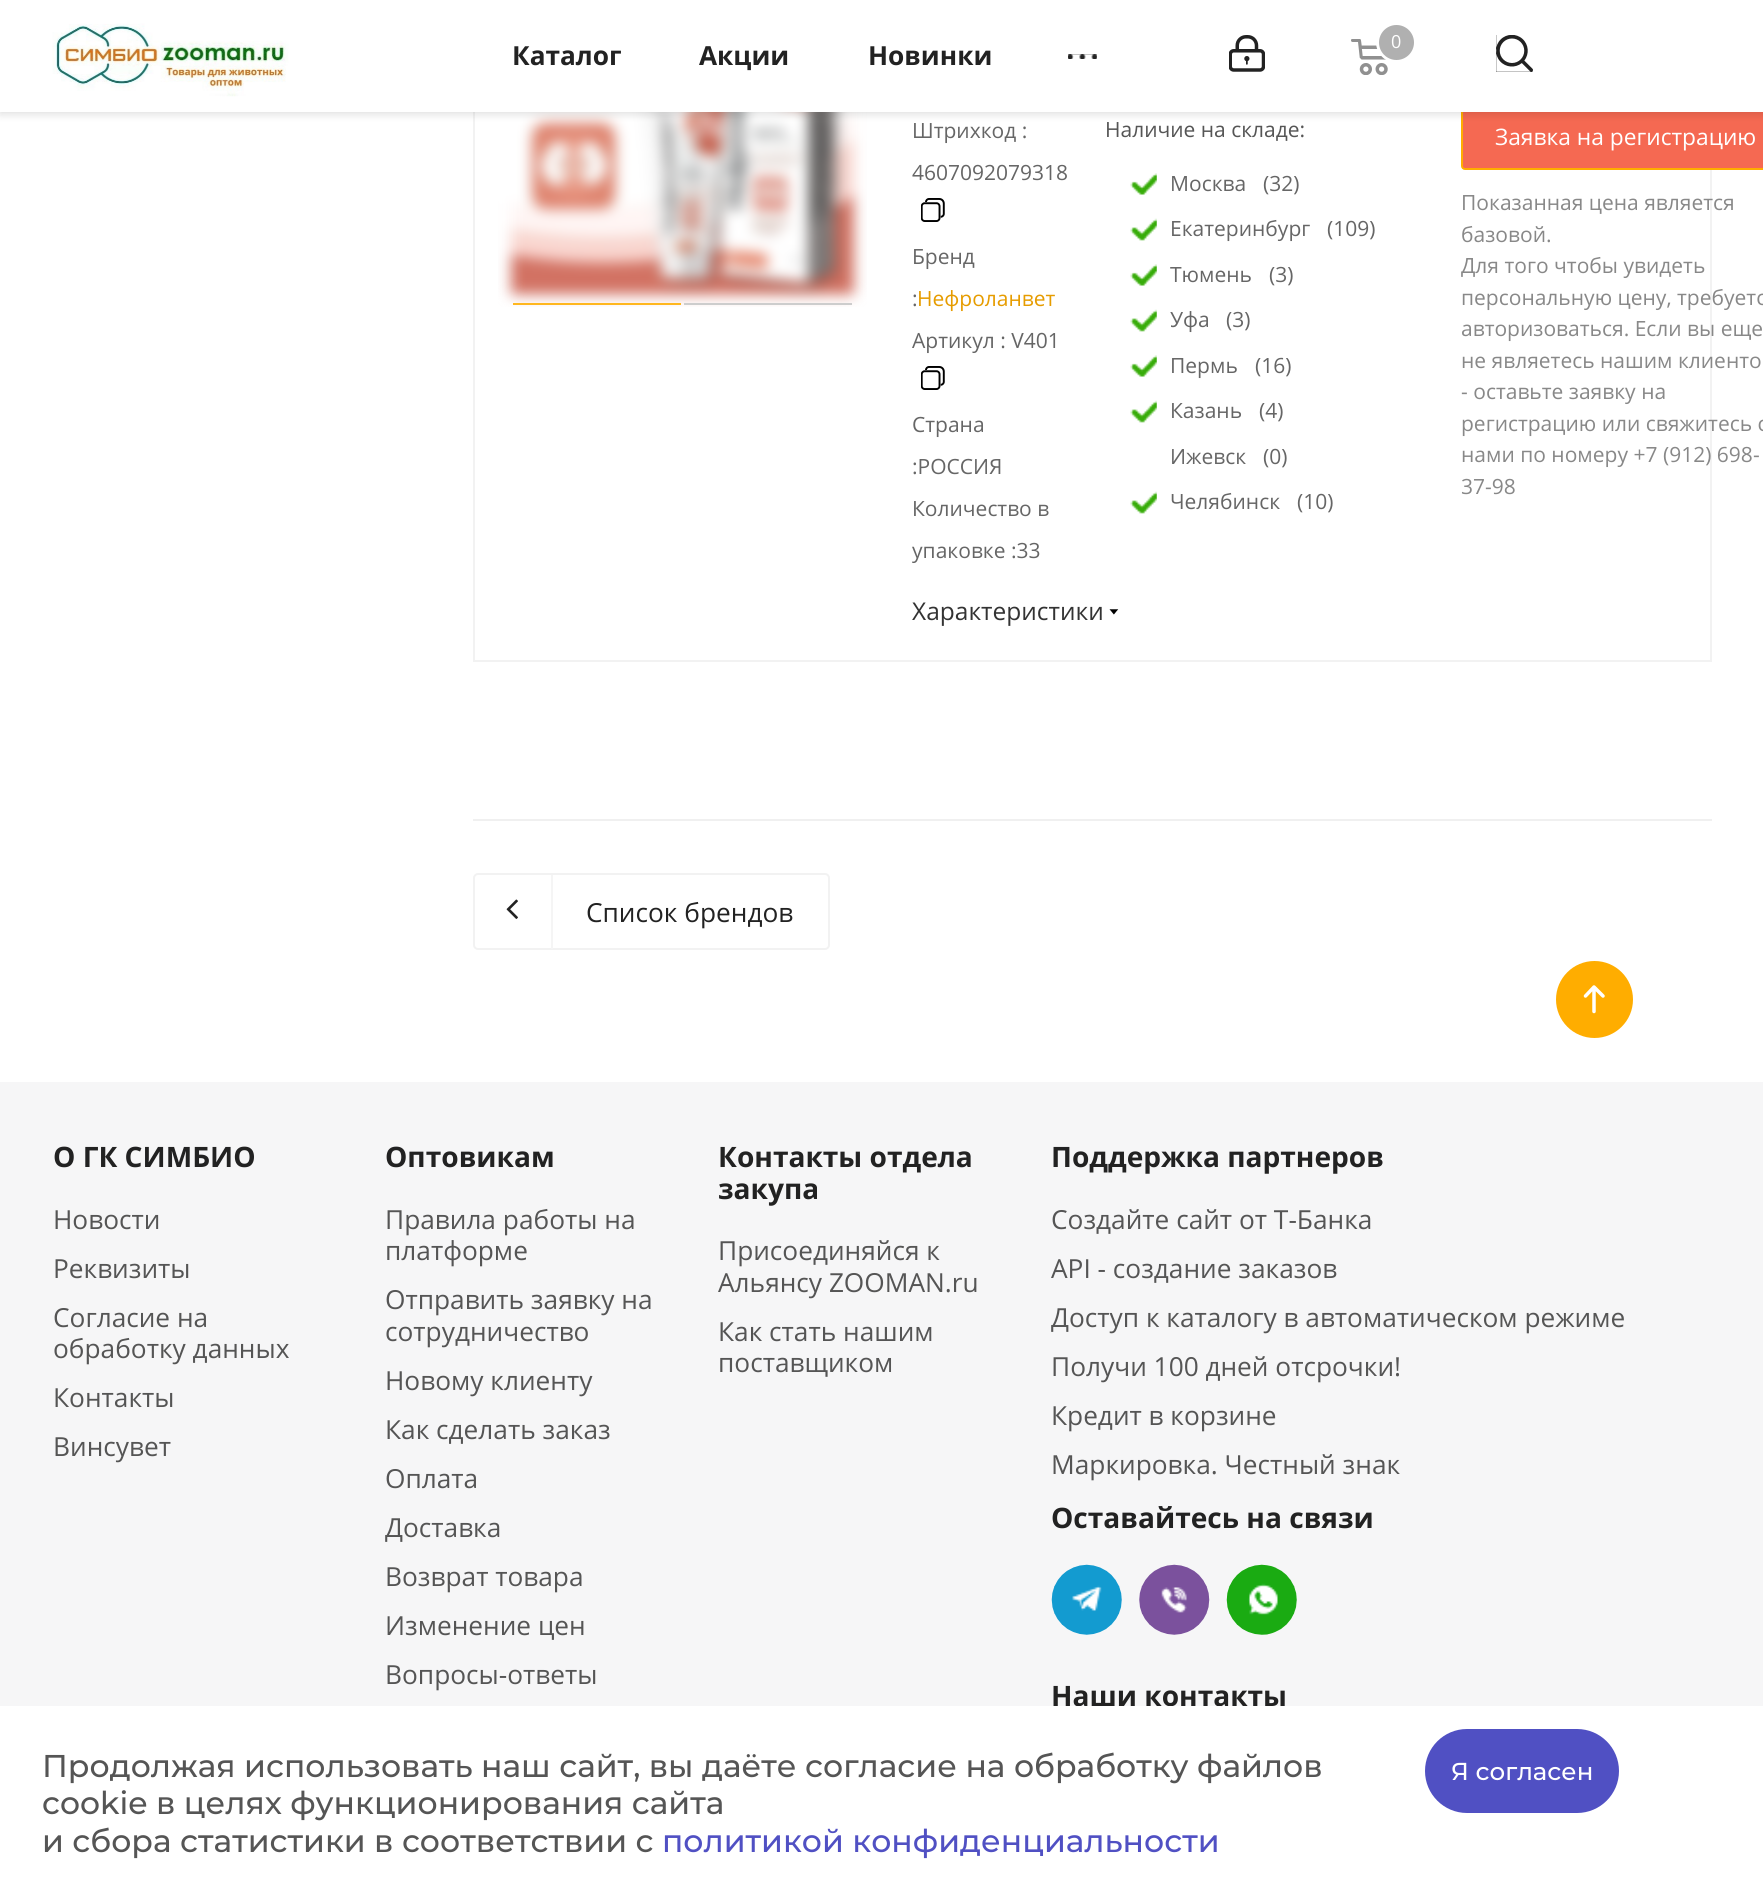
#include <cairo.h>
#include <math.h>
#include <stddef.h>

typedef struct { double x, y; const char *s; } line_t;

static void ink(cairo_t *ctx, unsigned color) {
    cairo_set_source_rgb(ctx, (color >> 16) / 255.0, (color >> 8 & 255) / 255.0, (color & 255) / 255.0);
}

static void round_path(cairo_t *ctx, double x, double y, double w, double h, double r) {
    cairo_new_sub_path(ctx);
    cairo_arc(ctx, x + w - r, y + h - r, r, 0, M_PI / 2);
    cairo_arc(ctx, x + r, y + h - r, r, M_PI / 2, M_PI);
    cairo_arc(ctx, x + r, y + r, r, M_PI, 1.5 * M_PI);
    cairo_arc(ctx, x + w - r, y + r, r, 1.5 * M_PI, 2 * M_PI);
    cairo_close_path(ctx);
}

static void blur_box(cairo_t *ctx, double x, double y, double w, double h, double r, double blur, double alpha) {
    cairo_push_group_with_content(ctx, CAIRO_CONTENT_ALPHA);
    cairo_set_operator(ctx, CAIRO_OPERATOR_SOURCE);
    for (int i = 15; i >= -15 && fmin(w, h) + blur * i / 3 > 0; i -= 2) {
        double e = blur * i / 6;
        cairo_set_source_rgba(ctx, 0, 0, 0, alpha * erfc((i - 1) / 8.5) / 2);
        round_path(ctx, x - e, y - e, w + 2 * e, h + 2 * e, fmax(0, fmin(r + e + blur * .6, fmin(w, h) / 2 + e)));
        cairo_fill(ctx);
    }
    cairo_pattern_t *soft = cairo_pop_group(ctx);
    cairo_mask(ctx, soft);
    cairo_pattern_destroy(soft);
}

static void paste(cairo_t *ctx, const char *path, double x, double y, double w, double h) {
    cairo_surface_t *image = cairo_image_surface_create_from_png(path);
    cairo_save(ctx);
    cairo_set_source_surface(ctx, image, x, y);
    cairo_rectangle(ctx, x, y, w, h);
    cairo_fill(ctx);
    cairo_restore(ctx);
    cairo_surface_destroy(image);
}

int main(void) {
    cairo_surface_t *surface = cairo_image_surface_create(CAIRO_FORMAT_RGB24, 1763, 1904);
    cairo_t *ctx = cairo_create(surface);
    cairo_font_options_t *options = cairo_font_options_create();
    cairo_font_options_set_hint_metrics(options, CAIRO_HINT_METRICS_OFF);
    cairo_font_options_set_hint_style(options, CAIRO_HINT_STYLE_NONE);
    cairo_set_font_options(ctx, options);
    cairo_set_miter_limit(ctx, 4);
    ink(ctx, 0xFFFFFF);
    cairo_paint(ctx);
    cairo_rectangle(ctx, 474, -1, 1237, 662);
    ink(ctx, 0xF2F2F2);
    cairo_stroke(ctx);
    paste(ctx, "media/6.png", 498, 112, 369, 195);
    ink(ctx, 0xF56952);
    round_path(ctx, 1462, 108, 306, 61, 3);
    cairo_fill_preserve(ctx);
    ink(ctx, 0xFFAD00);
    cairo_stroke(ctx);
    ink(ctx, 0x000000);
    blur_box(ctx, 0, 2, 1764, 112, 0, 4.5, 0.14);
    ink(ctx, 0xFFFFFF);
    cairo_rectangle(ctx, 0, 0, 1763, 112);
    cairo_fill(ctx);
    paste(ctx, "media/1.png", 52, 16, 237, 81);
    cairo_select_font_face(ctx, "Open Sans", CAIRO_FONT_SLANT_NORMAL, CAIRO_FONT_WEIGHT_BOLD);
    cairo_set_font_size(ctx, 26.25);
    ink(ctx, 0x222222);
    {
        static const line_t items[] = {
            {512, 65, "Каталог"},
            {699, 65, "Акции"},
            {868, 65, "Новинки"},
        };
        for (size_t i = 0; i < sizeof items / sizeof *items; i++) {
            cairo_move_to(ctx, items[i].x, items[i].y);
            cairo_show_text(ctx, items[i].s);
        }
    }
    cairo_rectangle(ctx, 1068, 54, 29, 5);
    cairo_fill(ctx);
    paste(ctx, "media/2.png", 1068, 54, 29, 5);
    paste(ctx, "media/3.png", 1229, 35, 36, 37);
    paste(ctx, "media/4.png", 1351, 39, 37, 36);
    cairo_arc(ctx, 1397, 42, 19, 0, 2 * M_PI);
    ink(ctx, 0xFFFFFF);
    cairo_set_line_width(ctx, 4);
    cairo_stroke(ctx);
    ink(ctx, 0xB0B0B0);
    cairo_arc(ctx, 1396.5, 42.5, 17.5, 0, 2 * M_PI);
    cairo_fill(ctx);
    cairo_select_font_face(ctx, "Open Sans", CAIRO_FONT_SLANT_NORMAL, CAIRO_FONT_WEIGHT_NORMAL);
    cairo_set_font_size(ctx, 18);
    ink(ctx, 0xFFFFFF);
    cairo_move_to(ctx, 1391, 48);
    cairo_show_text(ctx, "0");
    ink(ctx, 0x222222);
    cairo_rectangle(ctx, 1496, 35, 37, 37);
    cairo_fill(ctx);
    paste(ctx, "media/5.png", 1496, 35, 37, 37);
    ink(ctx, 0xFFB71F);
    cairo_rectangle(ctx, 513, 303, 168, 2);
    cairo_fill(ctx);
    ink(ctx, 0xCDCDCD);
    cairo_rectangle(ctx, 684, 303, 168, 2);
    cairo_fill(ctx);
    cairo_set_font_size(ctx, 21);
    ink(ctx, 0x666666);
    cairo_move_to(ctx, 912, 138);
    cairo_show_text(ctx, "Штрихкод :");
    cairo_move_to(ctx, 912, 180);
    cairo_show_text(ctx, "4607092079318");
    paste(ctx, "media/7.png", 921, 198, 24, 24);
    cairo_move_to(ctx, 912, 264);
    cairo_show_text(ctx, "Бренд");
    cairo_move_to(ctx, 912, 306);
    cairo_show_text(ctx, ":");
    ink(ctx, 0xE69C00);
    cairo_move_to(ctx, 917, 306);
    cairo_show_text(ctx, "Нефроланвет");
    ink(ctx, 0x666666);
    cairo_move_to(ctx, 912, 348);
    cairo_show_text(ctx, "Артикул : V401");
    paste(ctx, "media/7.png", 921, 366, 24, 24);
    {
        static const line_t items[] = {
            {912, 432, "Страна"},
            {912, 474, ":РОССИЯ"},
            {912, 516, "Количество в"},
            {912, 558, "упаковке :33"},
        };
        for (size_t i = 0; i < sizeof items / sizeof *items; i++) {
            cairo_move_to(ctx, items[i].x, items[i].y);
            cairo_show_text(ctx, items[i].s);
        }
    }
    ink(ctx, 0x555555);
    cairo_move_to(ctx, 1105, 137);
    cairo_show_text(ctx, "Наличие на складе:");
    paste(ctx, "media/8.png", 1130, 173, 27, 22);
    ink(ctx, 0x666666);
    cairo_move_to(ctx, 1170, 191);
    cairo_show_text(ctx, "Москва");
    cairo_move_to(ctx, 1263, 191);
    cairo_show_text(ctx, "(32)");
    paste(ctx, "media/9.png", 1130, 218, 27, 23);
    cairo_move_to(ctx, 1170, 236);
    cairo_show_text(ctx, "Екатеринбург");
    cairo_move_to(ctx, 1327, 236);
    cairo_show_text(ctx, "(109)");
    paste(ctx, "media/8.png", 1130, 264, 27, 22);
    cairo_move_to(ctx, 1170, 282);
    cairo_show_text(ctx, "Тюмень");
    cairo_move_to(ctx, 1269, 282);
    cairo_show_text(ctx, "(3)");
    paste(ctx, "media/9.png", 1130, 309, 27, 23);
    cairo_move_to(ctx, 1170, 327);
    cairo_show_text(ctx, "Уфа");
    cairo_move_to(ctx, 1226, 327);
    cairo_show_text(ctx, "(3)");
    paste(ctx, "media/8.png", 1130, 355, 27, 22);
    cairo_move_to(ctx, 1170, 373);
    cairo_show_text(ctx, "Пермь");
    cairo_move_to(ctx, 1255, 373);
    cairo_show_text(ctx, "(16)");
    paste(ctx, "media/9.png", 1130, 400, 27, 23);
    {
        static const line_t items[] = {
            {1170, 418, "Казань"},
            {1259, 418, "(4)"},
            {1170, 464, "Ижевск"},
            {1263, 464, "(0)"},
        };
        for (size_t i = 0; i < sizeof items / sizeof *items; i++) {
            cairo_move_to(ctx, items[i].x, items[i].y);
            cairo_show_text(ctx, items[i].s);
        }
    }
    paste(ctx, "media/10.png", 1130, 491, 27, 23);
    cairo_move_to(ctx, 1170, 509);
    cairo_show_text(ctx, "Челябинск");
    cairo_move_to(ctx, 1297, 509);
    cairo_show_text(ctx, "(10)");
    cairo_set_font_size(ctx, 24.5);
    ink(ctx, 0x333333);
    cairo_move_to(ctx, 912, 620);
    cairo_show_text(ctx, "Характеристики");
    paste(ctx, "media/11.png", 1109, 609, 10, 6);
    cairo_set_font_size(ctx, 22.75);
    ink(ctx, 0xFFFFFF);
    cairo_move_to(ctx, 1495, 145);
    cairo_show_text(ctx, "Заявка на регистрацию");
    cairo_set_font_size(ctx, 21);
    ink(ctx, 0x888888);
    {
        static const line_t items[] = {
            {1461, 210, "Показанная цена является"},
            {1461, 242, "базовой."},
            {1461, 273, "Для того чтобы увидеть"},
            {1461, 305, "персональную цену, требуетс"},
            {1461, 336, "авторизоваться. Если вы еще"},
            {1461, 368, "не являетесь нашим клиенто"},
            {1461, 399, "- оставьте заявку на"},
            {1461, 431, "регистрацию или свяжитесь с"},
            {1461, 462, "нами по номеру +7 (912) 698-"},
            {1461, 494, "37-98"},
        };
        for (size_t i = 0; i < sizeof items / sizeof *items; i++) {
            cairo_move_to(ctx, items[i].x, items[i].y);
            cairo_show_text(ctx, items[i].s);
        }
    }
    ink(ctx, 0xF0F0F0);
    cairo_rectangle(ctx, 473, 819, 1239, 2);
    cairo_fill(ctx);
    round_path(ctx, 474, 874, 355, 75, 4);
    ink(ctx, 0xF2F2F2);
    cairo_set_line_width(ctx, 2);
    cairo_stroke(ctx);
    paste(ctx, "media/12.png", 506, 899, 12, 20);
    ink(ctx, 0xF5F5F5);
    cairo_rectangle(ctx, 551, 875, 2, 74);
    cairo_fill(ctx);
    cairo_set_font_size(ctx, 26.25);
    ink(ctx, 0x222222);
    cairo_move_to(ctx, 586, 922);
    cairo_show_text(ctx, "Список брендов");
    ink(ctx, 0xFFAD00);
    cairo_new_path(ctx);
    cairo_arc(ctx, 1594.5, 999.5, 38.5, 0, 2 * M_PI);
    cairo_fill(ctx);
    cairo_new_path(ctx);
    cairo_move_to(ctx, 1594, 987);
    cairo_line_to(ctx, 1594, 1011.5);
    cairo_move_to(ctx, 1585.5, 996);
    cairo_line_to(ctx, 1594, 987);
    cairo_line_to(ctx, 1603, 996);
    ink(ctx, 0xFFFFFF);
    cairo_set_line_width(ctx, 3.5);
    cairo_set_line_cap(ctx, CAIRO_LINE_CAP_ROUND);
    cairo_set_line_join(ctx, CAIRO_LINE_JOIN_ROUND);
    cairo_stroke(ctx);
    ink(ctx, 0xF6F6F7);
    cairo_rectangle(ctx, 0, 1082, 1763, 624);
    cairo_fill(ctx);
    cairo_select_font_face(ctx, "Open Sans", CAIRO_FONT_SLANT_NORMAL, CAIRO_FONT_WEIGHT_BOLD);
    cairo_set_font_size(ctx, 28.1);
    ink(ctx, 0x222222);
    cairo_move_to(ctx, 53, 1167);
    cairo_show_text(ctx, "О ГК СИМБИО");
    cairo_select_font_face(ctx, "Open Sans", CAIRO_FONT_SLANT_NORMAL, CAIRO_FONT_WEIGHT_NORMAL);
    cairo_set_font_size(ctx, 26.25);
    ink(ctx, 0x555555);
    {
        static const line_t items[] = {
            {53, 1229, "Новости"},
            {53, 1278, "Реквизиты"},
            {53, 1327, "Согласие на"},
            {53, 1358, "обработку данных"},
            {53, 1407, "Контакты"},
            {53, 1456, "Винсувет"},
        };
        for (size_t i = 0; i < sizeof items / sizeof *items; i++) {
            cairo_move_to(ctx, items[i].x, items[i].y);
            cairo_show_text(ctx, items[i].s);
        }
    }
    cairo_select_font_face(ctx, "Open Sans", CAIRO_FONT_SLANT_NORMAL, CAIRO_FONT_WEIGHT_BOLD);
    cairo_set_font_size(ctx, 28.1);
    ink(ctx, 0x222222);
    cairo_move_to(ctx, 385, 1167);
    cairo_show_text(ctx, "Оптовикам");
    cairo_select_font_face(ctx, "Open Sans", CAIRO_FONT_SLANT_NORMAL, CAIRO_FONT_WEIGHT_NORMAL);
    cairo_set_font_size(ctx, 26.25);
    ink(ctx, 0x555555);
    {
        static const line_t items[] = {
            {385, 1229, "Правила работы на"},
            {385, 1260, "платформе"},
            {385, 1309, "Отправить заявку на"},
            {385, 1341, "сотрудничество"},
            {385, 1390, "Новому клиенту"},
            {385, 1439, "Как сделать заказ"},
            {385, 1488, "Оплата"},
            {385, 1537, "Доставка"},
            {385, 1586, "Возврат товара"},
            {385, 1635, "Изменение цен"},
            {385, 1684, "Вопросы-ответы"},
        };
        for (size_t i = 0; i < sizeof items / sizeof *items; i++) {
            cairo_move_to(ctx, items[i].x, items[i].y);
            cairo_show_text(ctx, items[i].s);
        }
    }
    cairo_select_font_face(ctx, "Open Sans", CAIRO_FONT_SLANT_NORMAL, CAIRO_FONT_WEIGHT_BOLD);
    cairo_set_font_size(ctx, 28.1);
    ink(ctx, 0x222222);
    cairo_move_to(ctx, 718, 1167);
    cairo_show_text(ctx, "Контакты отдела");
    cairo_move_to(ctx, 718, 1199);
    cairo_show_text(ctx, "закупа");
    cairo_select_font_face(ctx, "Open Sans", CAIRO_FONT_SLANT_NORMAL, CAIRO_FONT_WEIGHT_NORMAL);
    cairo_set_font_size(ctx, 26.25);
    ink(ctx, 0x555555);
    {
        static const line_t items[] = {
            {718, 1260, "Присоединяйся к"},
            {718, 1292, "Альянсу ZOOMAN.ru"},
            {718, 1341, "Как стать нашим"},
            {718, 1372, "поставщиком"},
        };
        for (size_t i = 0; i < sizeof items / sizeof *items; i++) {
            cairo_move_to(ctx, items[i].x, items[i].y);
            cairo_show_text(ctx, items[i].s);
        }
    }
    cairo_select_font_face(ctx, "Open Sans", CAIRO_FONT_SLANT_NORMAL, CAIRO_FONT_WEIGHT_BOLD);
    cairo_set_font_size(ctx, 28.1);
    ink(ctx, 0x222222);
    cairo_move_to(ctx, 1051, 1167);
    cairo_show_text(ctx, "Поддержка партнеров");
    cairo_select_font_face(ctx, "Open Sans", CAIRO_FONT_SLANT_NORMAL, CAIRO_FONT_WEIGHT_NORMAL);
    cairo_set_font_size(ctx, 26.25);
    ink(ctx, 0x555555);
    {
        static const line_t items[] = {
            {1051, 1229, "Создайте сайт от Т-Банка"},
            {1051, 1278, "API - создание заказов"},
            {1051, 1327, "Доступ к каталогу в автоматическом режиме"},
            {1051, 1376, "Получи 100 дней отсрочки!"},
            {1051, 1425, "Кредит в корзине"},
            {1051, 1474, "Маркировка. Честный знак"},
        };
        for (size_t i = 0; i < sizeof items / sizeof *items; i++) {
            cairo_move_to(ctx, items[i].x, items[i].y);
            cairo_show_text(ctx, items[i].s);
        }
    }
    cairo_select_font_face(ctx, "Open Sans", CAIRO_FONT_SLANT_NORMAL, CAIRO_FONT_WEIGHT_BOLD);
    cairo_set_font_size(ctx, 28.1);
    ink(ctx, 0x222222);
    cairo_move_to(ctx, 1051, 1528);
    cairo_show_text(ctx, "Оставайтесь на связи");
    paste(ctx, "media/13.png", 1051, 1564, 71, 71);
    paste(ctx, "media/14.png", 1139, 1564, 71, 71);
    paste(ctx, "media/15.png", 1226, 1564, 71, 71);
    cairo_move_to(ctx, 1051, 1706);
    cairo_show_text(ctx, "Наши контакты");
    ink(ctx, 0xFFFFFF);
    cairo_rectangle(ctx, 1076, 1706, 145, 1);
    cairo_fill(ctx);
    cairo_select_font_face(ctx, "Montserrat Medium", CAIRO_FONT_SLANT_NORMAL, CAIRO_FONT_WEIGHT_NORMAL);
    cairo_set_font_size(ctx, 31.5);
    ink(ctx, 0x555555);
    {
        static const line_t items[] = {
            {42, 1777, "Продолжая использовать наш сайт, вы даёте согласие на обработку файлов"},
            {42, 1814, "cookie в целях функционирования сайта"},
            {42, 1852, "и сбора статистики в соответствии с"},
        };
        for (size_t i = 0; i < sizeof items / sizeof *items; i++) {
            cairo_move_to(ctx, items[i].x, items[i].y);
            cairo_show_text(ctx, items[i].s);
        }
    }
    ink(ctx, 0x5050C3);
    cairo_move_to(ctx, 662, 1852);
    cairo_show_text(ctx, "политикой конфиденциальности");
    round_path(ctx, 1425, 1729, 194, 84, 42);
    cairo_fill(ctx);
    cairo_set_font_size(ctx, 24.5);
    ink(ctx, 0xFFFFFF);
    cairo_move_to(ctx, 1451, 1780);
    cairo_show_text(ctx, "Я согласен");
    cairo_surface_write_to_png(surface, "image.png");
    cairo_font_options_destroy(options);
    cairo_destroy(ctx);
    cairo_surface_destroy(surface);
    return 0;
}
